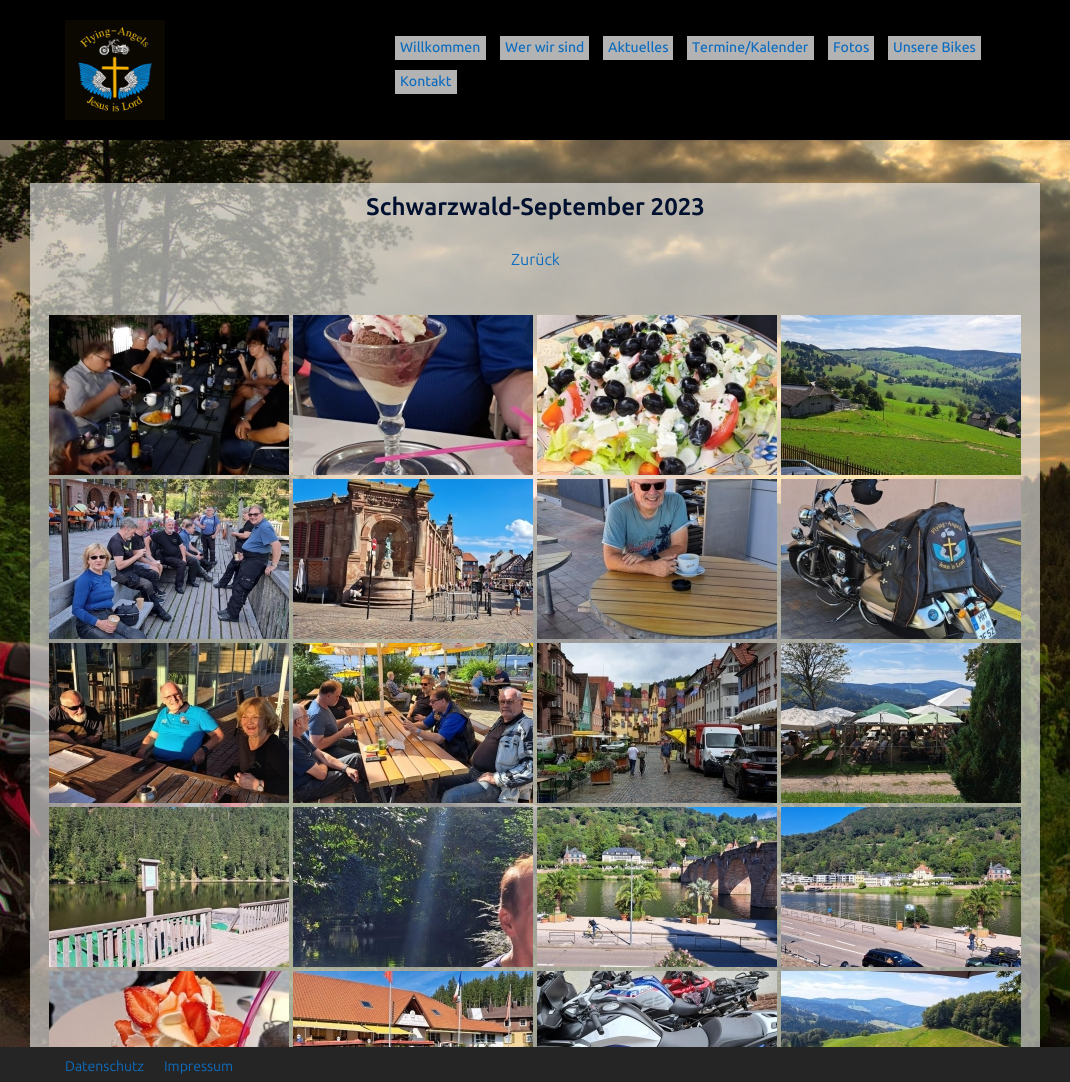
#include <cairo.h>
#include <math.h>
#include <stddef.h>


static void ink(cairo_t *ctx, unsigned color) {
    cairo_set_source_rgb(ctx, (color >> 16) / 255.0, (color >> 8 & 255) / 255.0, (color & 255) / 255.0);
}

static void paste(cairo_t *ctx, const char *path, double x, double y, double w, double h) {
    cairo_surface_t *image = cairo_image_surface_create_from_png(path);
    cairo_save(ctx);
    cairo_set_source_surface(ctx, image, x, y);
    cairo_rectangle(ctx, x, y, w, h);
    cairo_fill(ctx);
    cairo_restore(ctx);
    cairo_surface_destroy(image);
}

int main(void) {
    cairo_surface_t *surface = cairo_image_surface_create(CAIRO_FORMAT_RGB24, 1070, 1082);
    cairo_t *ctx = cairo_create(surface);
    cairo_font_options_t *options = cairo_font_options_create();
    cairo_font_options_set_hint_metrics(options, CAIRO_HINT_METRICS_OFF);
    cairo_font_options_set_hint_style(options, CAIRO_HINT_STYLE_NONE);
    cairo_set_font_options(ctx, options);
    cairo_set_miter_limit(ctx, 4);
    ink(ctx, 0xFFFFFF);
    cairo_paint(ctx);
    paste(ctx, "media/1.png", 0, 140, 1070, 907);
    ink(ctx, 0x000000);
    cairo_rectangle(ctx, 0, 0, 1070, 140);
    cairo_fill(ctx);
    paste(ctx, "media/2.png", 65, 20, 100, 100);
    ink(ctx, 0xB3B3B3);
    cairo_rectangle(ctx, 395, 36, 91, 24);
    cairo_fill(ctx);
    cairo_select_font_face(ctx, "Ubuntu Medium", CAIRO_FONT_SLANT_NORMAL, CAIRO_FONT_WEIGHT_NORMAL);
    cairo_set_font_size(ctx, 14);
    ink(ctx, 0x0D6CBF);
    cairo_move_to(ctx, 400, 52);
    cairo_show_text(ctx, "Willkommen");
    ink(ctx, 0xB3B3B3);
    cairo_rectangle(ctx, 500, 36, 89, 24);
    cairo_fill(ctx);
    ink(ctx, 0x0D6CBF);
    cairo_move_to(ctx, 505, 52);
    cairo_show_text(ctx, "Wer wir sind");
    ink(ctx, 0xB3B3B3);
    cairo_rectangle(ctx, 603, 36, 70, 24);
    cairo_fill(ctx);
    ink(ctx, 0x0D6CBF);
    cairo_move_to(ctx, 608, 52);
    cairo_show_text(ctx, "Aktuelles");
    ink(ctx, 0xB3B3B3);
    cairo_rectangle(ctx, 687, 36, 127, 24);
    cairo_fill(ctx);
    ink(ctx, 0x0D6CBF);
    cairo_move_to(ctx, 692, 52);
    cairo_show_text(ctx, "Termine/Kalender");
    ink(ctx, 0xB3B3B3);
    cairo_rectangle(ctx, 828, 36, 46, 24);
    cairo_fill(ctx);
    ink(ctx, 0x0D6CBF);
    cairo_move_to(ctx, 833, 52);
    cairo_show_text(ctx, "Fotos");
    ink(ctx, 0xB3B3B3);
    cairo_rectangle(ctx, 888, 36, 93, 24);
    cairo_fill(ctx);
    ink(ctx, 0x0D6CBF);
    cairo_move_to(ctx, 893, 52);
    cairo_show_text(ctx, "Unsere Bikes");
    ink(ctx, 0xB3B3B3);
    cairo_rectangle(ctx, 395, 70, 62, 24);
    cairo_fill(ctx);
    ink(ctx, 0x0D6CBF);
    cairo_move_to(ctx, 400, 86);
    cairo_show_text(ctx, "Kontakt");
    cairo_set_source_rgba(ctx, 1, 1, 1, 0.57);
    cairo_rectangle(ctx, 30, 183, 1010, 864);
    cairo_fill(ctx);
    cairo_select_font_face(ctx, "Ubuntu", CAIRO_FONT_SLANT_NORMAL, CAIRO_FONT_WEIGHT_BOLD);
    cairo_set_font_size(ctx, 24);
    ink(ctx, 0x00102E);
    cairo_move_to(ctx, 366, 215);
    cairo_show_text(ctx, "Schwarzwald-September 2023");
    cairo_select_font_face(ctx, "Ubuntu", CAIRO_FONT_SLANT_NORMAL, CAIRO_FONT_WEIGHT_NORMAL);
    cairo_set_font_size(ctx, 16);
    ink(ctx, 0x0D6CBF);
    cairo_move_to(ctx, 511, 265);
    cairo_show_text(ctx, "Zurück");
    paste(ctx, "media/3.png", 49, 315, 240, 160);
    paste(ctx, "media/4.png", 293, 315, 240, 160);
    paste(ctx, "media/5.png", 537, 315, 240, 160);
    paste(ctx, "media/6.png", 781, 315, 240, 160);
    paste(ctx, "media/7.png", 49, 479, 240, 160);
    paste(ctx, "media/8.png", 293, 479, 240, 160);
    paste(ctx, "media/9.png", 537, 479, 240, 160);
    paste(ctx, "media/10.png", 781, 479, 240, 160);
    paste(ctx, "media/11.png", 49, 643, 240, 160);
    paste(ctx, "media/12.png", 293, 643, 240, 160);
    paste(ctx, "media/13.png", 537, 643, 240, 160);
    paste(ctx, "media/14.png", 781, 643, 240, 160);
    paste(ctx, "media/15.png", 49, 807, 240, 160);
    paste(ctx, "media/16.png", 293, 807, 240, 160);
    paste(ctx, "media/17.png", 537, 807, 240, 160);
    paste(ctx, "media/18.png", 781, 807, 240, 160);
    paste(ctx, "media/19.png", 49, 971, 240, 76);
    paste(ctx, "media/20.png", 293, 971, 240, 76);
    paste(ctx, "media/21.png", 537, 971, 240, 76);
    paste(ctx, "media/22.png", 781, 971, 240, 76);
    ink(ctx, 0x252525);
    cairo_rectangle(ctx, 0, 1047, 1070, 35);
    cairo_fill(ctx);
    cairo_set_font_size(ctx, 14);
    ink(ctx, 0x0D6CBF);
    cairo_move_to(ctx, 65, 1071);
    cairo_show_text(ctx, "Datenschutz");
    cairo_move_to(ctx, 164, 1071);
    cairo_show_text(ctx, "Impressum");
    cairo_surface_write_to_png(surface, "image.png");
    cairo_font_options_destroy(options);
    cairo_destroy(ctx);
    cairo_surface_destroy(surface);
    return 0;
}
